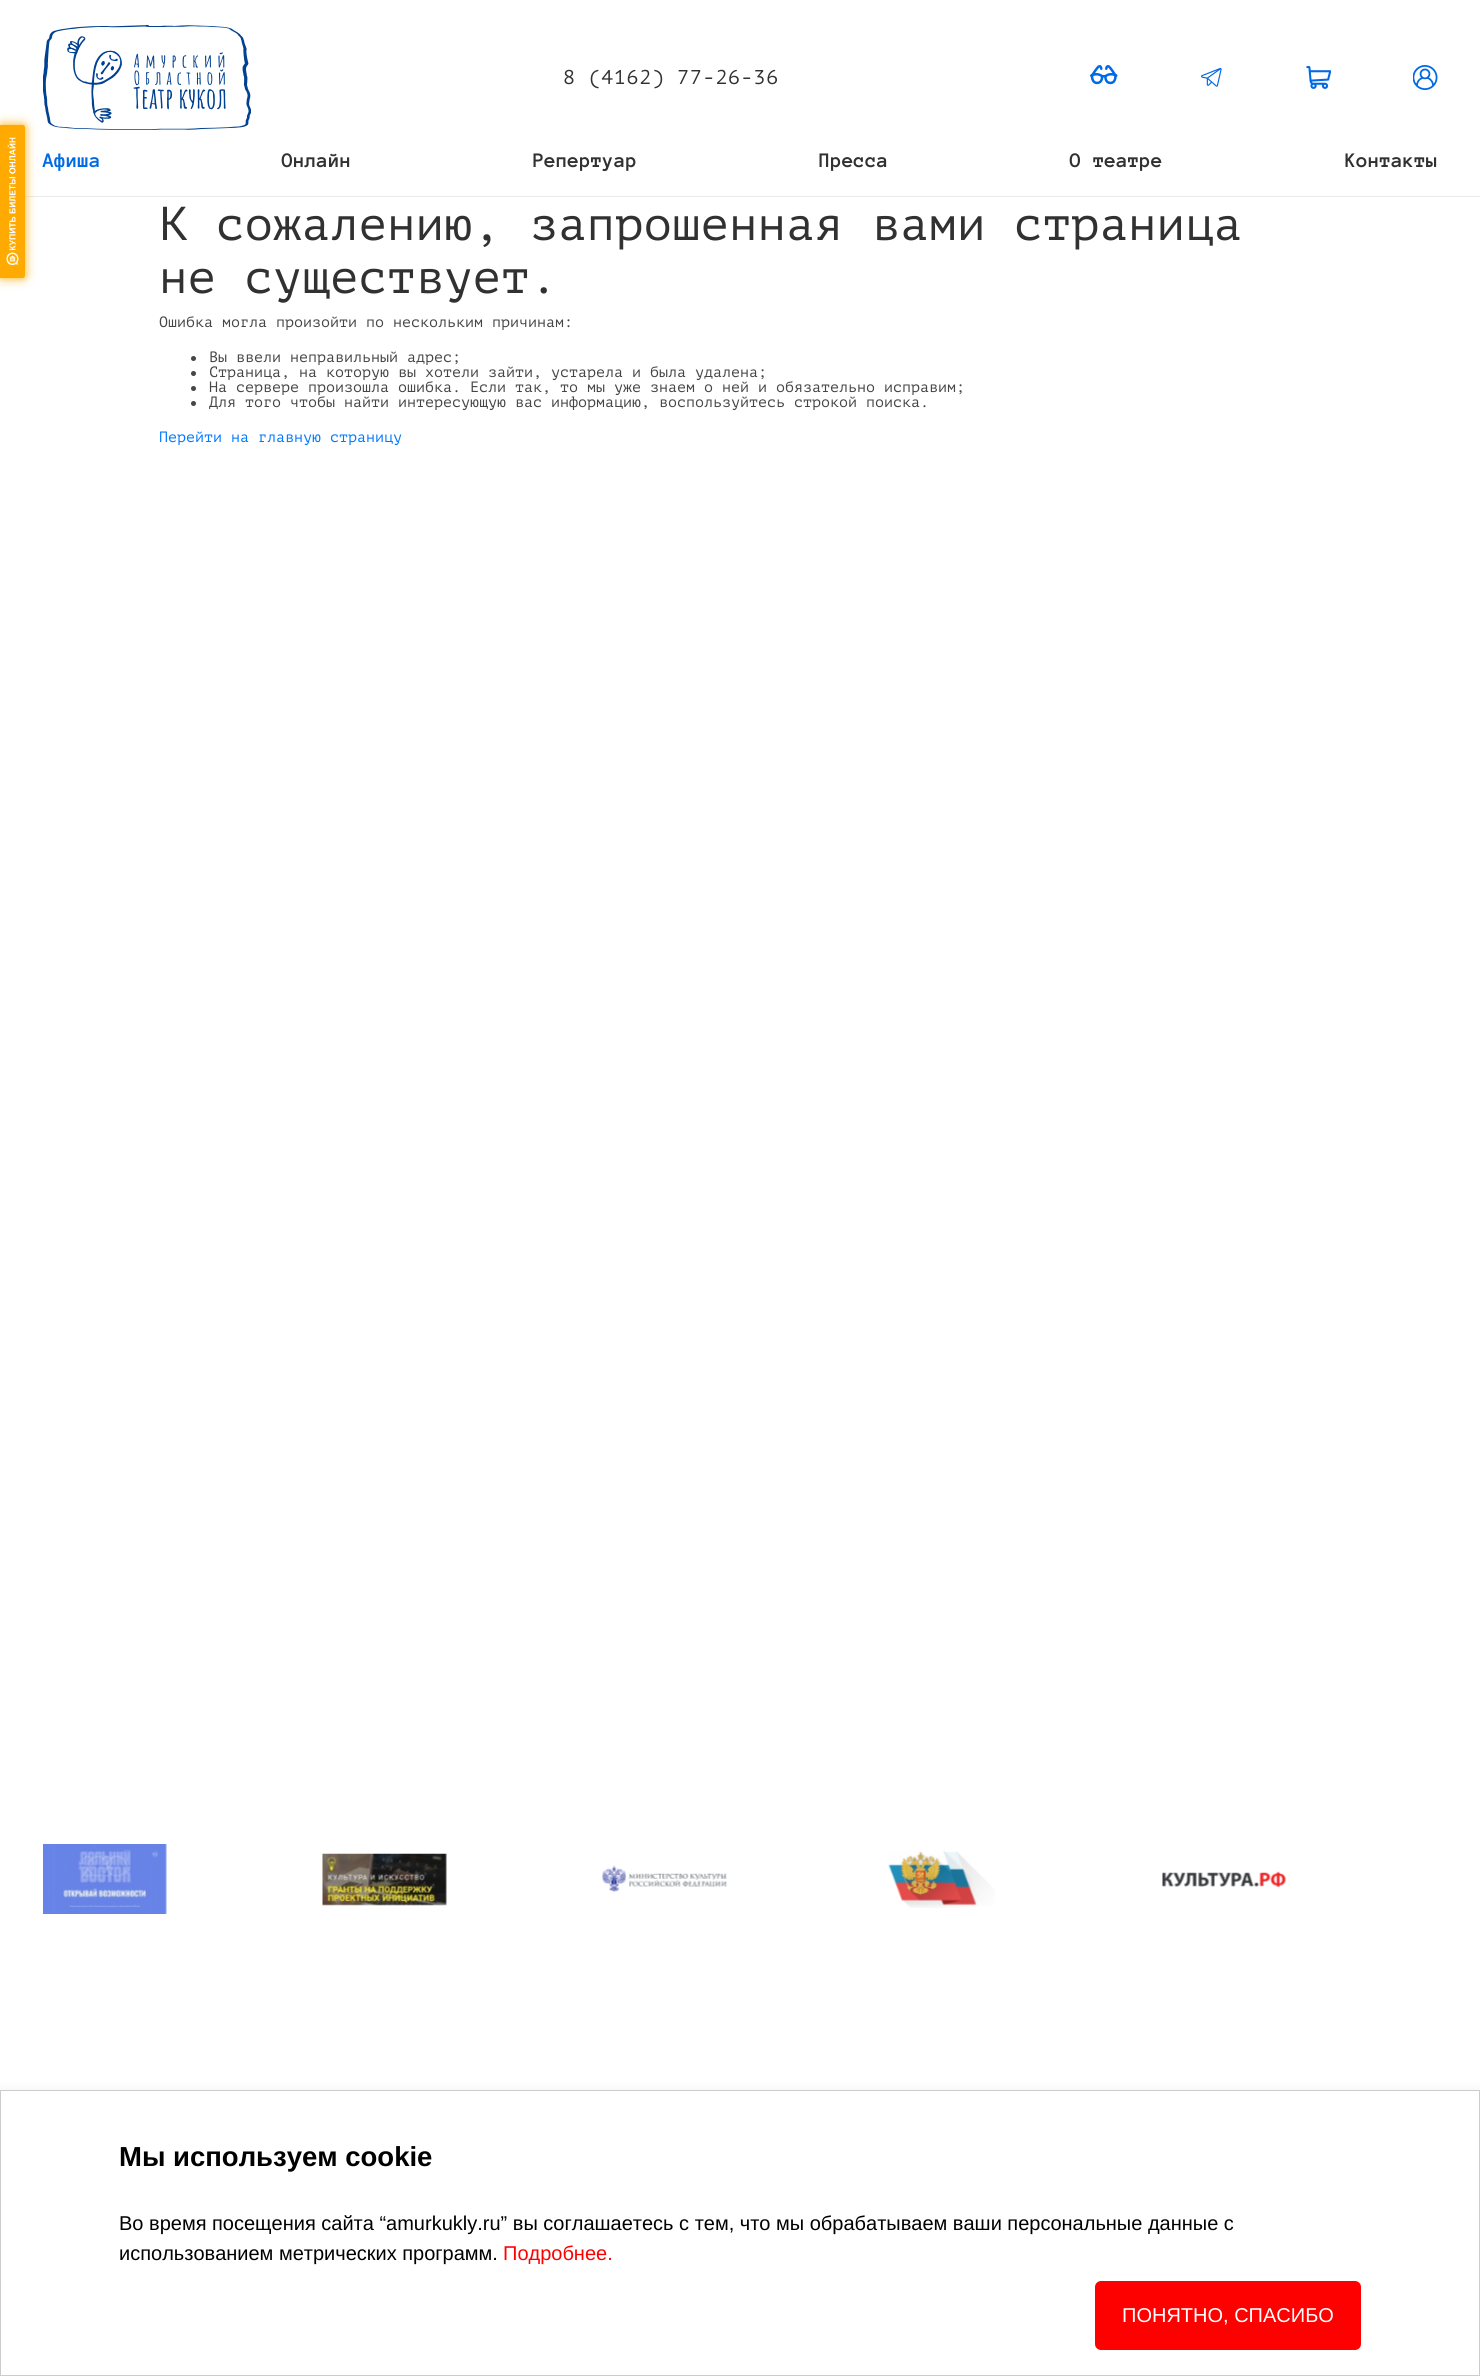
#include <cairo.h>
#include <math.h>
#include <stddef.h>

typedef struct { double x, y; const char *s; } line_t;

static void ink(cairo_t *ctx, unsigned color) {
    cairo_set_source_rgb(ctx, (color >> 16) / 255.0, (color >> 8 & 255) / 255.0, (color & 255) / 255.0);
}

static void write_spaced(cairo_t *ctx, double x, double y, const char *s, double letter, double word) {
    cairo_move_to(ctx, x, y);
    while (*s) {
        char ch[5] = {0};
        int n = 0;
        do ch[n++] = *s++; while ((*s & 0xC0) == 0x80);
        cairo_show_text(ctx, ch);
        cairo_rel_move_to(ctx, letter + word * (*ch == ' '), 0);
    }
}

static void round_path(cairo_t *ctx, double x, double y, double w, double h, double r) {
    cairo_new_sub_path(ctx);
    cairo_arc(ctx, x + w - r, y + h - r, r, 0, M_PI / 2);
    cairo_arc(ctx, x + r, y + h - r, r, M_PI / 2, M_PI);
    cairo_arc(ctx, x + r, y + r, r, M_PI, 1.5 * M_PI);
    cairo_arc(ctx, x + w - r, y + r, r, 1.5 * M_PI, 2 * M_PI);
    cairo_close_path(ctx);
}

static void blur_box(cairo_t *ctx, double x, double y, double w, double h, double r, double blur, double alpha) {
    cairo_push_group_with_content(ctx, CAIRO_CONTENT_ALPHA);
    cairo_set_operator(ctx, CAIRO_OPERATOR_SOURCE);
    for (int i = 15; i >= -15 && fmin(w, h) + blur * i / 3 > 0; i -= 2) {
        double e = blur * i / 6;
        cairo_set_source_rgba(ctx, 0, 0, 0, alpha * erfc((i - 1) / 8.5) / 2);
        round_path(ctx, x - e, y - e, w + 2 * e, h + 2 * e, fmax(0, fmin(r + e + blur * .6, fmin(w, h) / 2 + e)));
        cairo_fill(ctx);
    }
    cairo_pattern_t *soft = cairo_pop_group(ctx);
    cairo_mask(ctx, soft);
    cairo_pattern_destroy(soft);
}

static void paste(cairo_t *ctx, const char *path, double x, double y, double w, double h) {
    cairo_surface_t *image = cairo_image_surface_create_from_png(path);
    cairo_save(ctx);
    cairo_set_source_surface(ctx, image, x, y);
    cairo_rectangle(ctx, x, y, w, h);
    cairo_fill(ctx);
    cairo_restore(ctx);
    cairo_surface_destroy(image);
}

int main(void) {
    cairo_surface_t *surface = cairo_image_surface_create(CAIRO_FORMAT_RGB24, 1480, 2376);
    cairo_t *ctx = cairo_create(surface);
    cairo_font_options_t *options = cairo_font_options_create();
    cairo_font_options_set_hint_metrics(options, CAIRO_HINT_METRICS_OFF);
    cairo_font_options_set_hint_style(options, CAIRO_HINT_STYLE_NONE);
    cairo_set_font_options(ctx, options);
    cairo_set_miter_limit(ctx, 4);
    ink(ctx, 0xFFFFFF);
    cairo_paint(ctx);
    ink(ctx, 0xEAEAEA);
    cairo_rectangle(ctx, 25, 196, 1455, 1);
    cairo_fill(ctx);
    ink(ctx, 0xFFAA00);
    blur_box(ctx, 0, 125, 25, 153, 2.5, 5, 1);
    ink(ctx, 0xFFAA00);
    cairo_new_path(ctx);
    cairo_move_to(ctx, 0, 125);
    cairo_line_to(ctx, 22.5, 125);
    cairo_curve_to(ctx, 24, 125, 25, 126, 25, 127.5);
    cairo_line_to(ctx, 25, 275.5);
    cairo_curve_to(ctx, 25, 277, 24, 278, 22.5, 278);
    cairo_line_to(ctx, 0, 278);
    cairo_close_path(ctx);
    cairo_fill(ctx);
    paste(ctx, "media/1.png", 6, 137, 13, 128);
    paste(ctx, "media/2.png", 43, 25, 208, 105);
    cairo_select_font_face(ctx, "PT Mono", CAIRO_FONT_SLANT_NORMAL, CAIRO_FONT_WEIGHT_NORMAL);
    cairo_set_font_size(ctx, 20);
    ink(ctx, 0x313131);
    write_spaced(ctx, 563, 84, "8 (4162) 77-26-36", 0.7, 0);
    paste(ctx, "media/3.png", 1090, 65, 28, 20);
    paste(ctx, "media/4.png", 1201, 67, 21, 20);
    paste(ctx, "media/5.png", 1306, 66, 25, 23);
    paste(ctx, "media/6.png", 1413, 65, 25, 25);
    cairo_select_font_face(ctx, "Anonymous Pro", CAIRO_FONT_SLANT_NORMAL, CAIRO_FONT_WEIGHT_BOLD);
    cairo_set_font_size(ctx, 21.25);
    ink(ctx, 0x006AE6);
    cairo_move_to(ctx, 43, 167);
    cairo_show_text(ctx, "Афиша");
    ink(ctx, 0x313131);
    {
        static const line_t items[] = {
            {282, 167, "Онлайн"},
            {533, 167, "Репертуар"},
            {819, 167, "Пресса"},
            {1070, 167, "О театре"},
            {1345, 167, "Контакты"},
        };
        for (size_t i = 0; i < sizeof items / sizeof *items; i++) {
            cairo_move_to(ctx, items[i].x, items[i].y);
            cairo_show_text(ctx, items[i].s);
        }
    }
    cairo_select_font_face(ctx, "PT Mono", CAIRO_FONT_SLANT_NORMAL, CAIRO_FONT_WEIGHT_NORMAL);
    cairo_set_font_size(ctx, 47.5);
    cairo_move_to(ctx, 159, 240);
    cairo_show_text(ctx, "К сожалению, запрошенная вами страница");
    cairo_move_to(ctx, 159, 293);
    cairo_show_text(ctx, "не существует.");
    cairo_set_font_size(ctx, 15);
    ink(ctx, 0x464646);
    cairo_move_to(ctx, 159, 327);
    cairo_show_text(ctx, "Ошибка могла произойти по нескольким причинам:");
    cairo_new_path(ctx);
    cairo_arc(ctx, 193.5, 358.5, 2.5, 0, 2 * M_PI);
    cairo_fill(ctx);
    cairo_move_to(ctx, 209, 362);
    cairo_show_text(ctx, "Вы ввели неправильный адрес;");
    cairo_new_path(ctx);
    cairo_arc(ctx, 193.5, 373.5, 2.5, 0, 2 * M_PI);
    cairo_fill(ctx);
    cairo_move_to(ctx, 209, 377);
    cairo_show_text(ctx, "Страница, на которую вы хотели зайти, устарела и была удалена;");
    cairo_new_path(ctx);
    cairo_arc(ctx, 193.5, 388.5, 2.5, 0, 2 * M_PI);
    cairo_fill(ctx);
    cairo_move_to(ctx, 209, 392);
    cairo_show_text(ctx, "На сервере произошла ошибка. Если так, то мы уже знаем о ней и обязательно исправим;");
    cairo_new_path(ctx);
    cairo_arc(ctx, 193.5, 403.5, 2.5, 0, 2 * M_PI);
    cairo_fill(ctx);
    cairo_move_to(ctx, 209, 407);
    cairo_show_text(ctx, "Для того чтобы найти интересующую вас информацию, воспользуйтесь строкой поиска.");
    ink(ctx, 0x007BFF);
    cairo_move_to(ctx, 159, 442);
    cairo_show_text(ctx, "Перейти на главную страницу");
    paste(ctx, "media/7.png", 43, 1844, 124, 70);
    paste(ctx, "media/8.png", 322, 1853, 125, 53);
    paste(ctx, "media/9.png", 602, 1865, 125, 27);
    paste(ctx, "media/10.png", 888, 1850, 107, 58);
    paste(ctx, "media/11.png", 1162, 1871, 124, 16);
    ink(ctx, 0x000000);
    blur_box(ctx, 0, 2093, 1480, 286, 0, 6, 0.1);
    ink(ctx, 0xFFFFFF);
    cairo_rectangle(ctx, 0.5, 2090.5, 1479, 285);
    cairo_fill_preserve(ctx);
    ink(ctx, 0xCCCCCC);
    cairo_set_line_width(ctx, 1);
    cairo_stroke(ctx);
    cairo_select_font_face(ctx, "Liberation Sans", CAIRO_FONT_SLANT_NORMAL, CAIRO_FONT_WEIGHT_BOLD);
    cairo_set_font_size(ctx, 27.5);
    ink(ctx, 0x000000);
    cairo_move_to(ctx, 119, 2166);
    cairo_show_text(ctx, "Мы используем cookie");
    cairo_select_font_face(ctx, "Liberation Sans", CAIRO_FONT_SLANT_NORMAL, CAIRO_FONT_WEIGHT_NORMAL);
    cairo_set_font_size(ctx, 20);
    cairo_move_to(ctx, 119, 2230);
    cairo_show_text(ctx, "Во время посещения сайта “amurkukly.ru” вы соглашаетесь с тем, что мы обрабатываем ваши персональные данные с");
    cairo_move_to(ctx, 119, 2260);
    cairo_show_text(ctx, "использованием метрических программ.");
    ink(ctx, 0xFF0000);
    cairo_move_to(ctx, 503, 2260);
    cairo_show_text(ctx, "Подробнее.");
    ink(ctx, 0xFD0000);
    round_path(ctx, 1095, 2281, 266, 69, 6);
    cairo_fill(ctx);
    ink(ctx, 0xFFFFFF);
    cairo_move_to(ctx, 1122, 2322);
    cairo_show_text(ctx, "ПОНЯТНО, СПАСИБО");
    cairo_surface_write_to_png(surface, "image.png");
    cairo_font_options_destroy(options);
    cairo_destroy(ctx);
    cairo_surface_destroy(surface);
    return 0;
}
